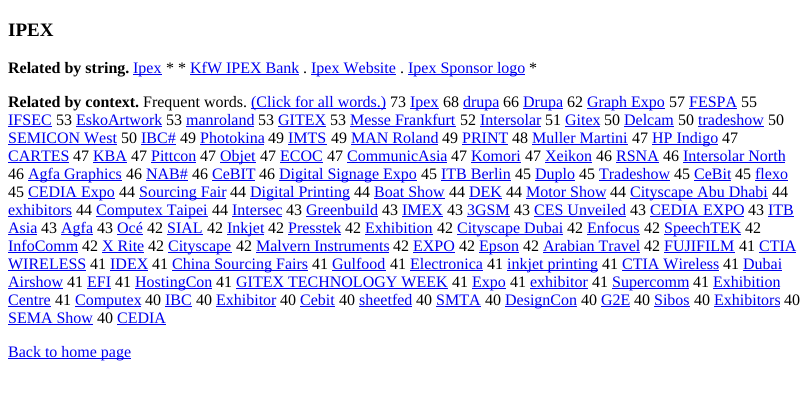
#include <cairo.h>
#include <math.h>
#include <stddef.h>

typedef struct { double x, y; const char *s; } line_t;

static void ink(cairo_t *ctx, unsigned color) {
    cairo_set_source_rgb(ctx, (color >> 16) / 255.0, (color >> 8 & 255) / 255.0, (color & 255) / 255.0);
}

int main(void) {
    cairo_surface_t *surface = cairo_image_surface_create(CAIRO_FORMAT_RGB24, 811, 414);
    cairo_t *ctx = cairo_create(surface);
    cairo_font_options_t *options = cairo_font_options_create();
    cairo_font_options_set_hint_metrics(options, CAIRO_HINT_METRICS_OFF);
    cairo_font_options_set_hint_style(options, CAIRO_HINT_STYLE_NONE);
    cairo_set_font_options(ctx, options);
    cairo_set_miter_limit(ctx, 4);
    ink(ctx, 0xFFFFFF);
    cairo_paint(ctx);
    cairo_select_font_face(ctx, "Liberation Serif", CAIRO_FONT_SLANT_NORMAL, CAIRO_FONT_WEIGHT_BOLD);
    cairo_set_font_size(ctx, 19);
    ink(ctx, 0x000000);
    cairo_move_to(ctx, 8, 36);
    cairo_show_text(ctx, "IPEX");
    cairo_set_font_size(ctx, 16);
    cairo_move_to(ctx, 8, 73);
    cairo_show_text(ctx, "Related by string.");
    ink(ctx, 0x0000EE);
    cairo_rectangle(ctx, 133, 74, 29, 1);
    cairo_fill(ctx);
    cairo_select_font_face(ctx, "Liberation Serif", CAIRO_FONT_SLANT_NORMAL, CAIRO_FONT_WEIGHT_NORMAL);
    cairo_move_to(ctx, 133, 73);
    cairo_show_text(ctx, "Ipex");
    ink(ctx, 0x000000);
    cairo_move_to(ctx, 166, 73);
    cairo_show_text(ctx, "* *");
    ink(ctx, 0x0000EE);
    cairo_move_to(ctx, 190, 73);
    cairo_show_text(ctx, "KfW IPEX Bank");
    cairo_rectangle(ctx, 190, 74, 109, 1);
    cairo_fill(ctx);
    cairo_rectangle(ctx, 311, 74, 85, 1);
    cairo_fill(ctx);
    cairo_move_to(ctx, 311, 73);
    cairo_show_text(ctx, "Ipex Website");
    cairo_rectangle(ctx, 408, 74, 117, 1);
    cairo_fill(ctx);
    cairo_move_to(ctx, 408, 73);
    cairo_show_text(ctx, "Ipex Sponsor logo");
    ink(ctx, 0x000000);
    {
        static const line_t items[] = {
            {529, 73, "*"},
            {303, 73, "."},
            {400, 73, "."},
        };
        for (size_t i = 0; i < sizeof items / sizeof *items; i++) {
            cairo_move_to(ctx, items[i].x, items[i].y);
            cairo_show_text(ctx, items[i].s);
        }
    }
    cairo_select_font_face(ctx, "Liberation Serif", CAIRO_FONT_SLANT_NORMAL, CAIRO_FONT_WEIGHT_BOLD);
    cairo_move_to(ctx, 8, 107);
    cairo_show_text(ctx, "Related by context.");
    cairo_select_font_face(ctx, "Liberation Serif", CAIRO_FONT_SLANT_NORMAL, CAIRO_FONT_WEIGHT_NORMAL);
    cairo_move_to(ctx, 143, 107);
    cairo_show_text(ctx, "Frequent words.");
    ink(ctx, 0x0000EE);
    cairo_rectangle(ctx, 251, 108, 135, 1);
    cairo_fill(ctx);
    cairo_move_to(ctx, 251, 107);
    cairo_show_text(ctx, "(Click for all words.)");
    ink(ctx, 0x000000);
    cairo_move_to(ctx, 390, 107);
    cairo_show_text(ctx, "73");
    ink(ctx, 0x0000EE);
    cairo_rectangle(ctx, 410, 108, 29, 1);
    cairo_fill(ctx);
    cairo_move_to(ctx, 410, 107);
    cairo_show_text(ctx, "Ipex");
    ink(ctx, 0x000000);
    cairo_move_to(ctx, 443, 107);
    cairo_show_text(ctx, "68");
    ink(ctx, 0x0000EE);
    cairo_rectangle(ctx, 463, 108, 36, 1);
    cairo_fill(ctx);
    cairo_move_to(ctx, 463, 107);
    cairo_show_text(ctx, "drupa");
    ink(ctx, 0x000000);
    cairo_move_to(ctx, 503, 107);
    cairo_show_text(ctx, "66");
    ink(ctx, 0x0000EE);
    cairo_rectangle(ctx, 523, 108, 40, 1);
    cairo_fill(ctx);
    cairo_move_to(ctx, 523, 107);
    cairo_show_text(ctx, "Drupa");
    ink(ctx, 0x000000);
    cairo_move_to(ctx, 567, 107);
    cairo_show_text(ctx, "62");
    ink(ctx, 0x0000EE);
    cairo_rectangle(ctx, 587, 108, 78, 1);
    cairo_fill(ctx);
    cairo_move_to(ctx, 587, 107);
    cairo_show_text(ctx, "Graph Expo");
    ink(ctx, 0x000000);
    cairo_move_to(ctx, 669, 107);
    cairo_show_text(ctx, "57");
    ink(ctx, 0x0000EE);
    cairo_move_to(ctx, 689, 107);
    cairo_show_text(ctx, "FESPA");
    cairo_rectangle(ctx, 689, 108, 48, 1);
    cairo_fill(ctx);
    ink(ctx, 0x000000);
    cairo_move_to(ctx, 741, 107);
    cairo_show_text(ctx, "55");
    ink(ctx, 0x0000EE);
    cairo_move_to(ctx, 8, 125);
    cairo_show_text(ctx, "IFSEC");
    cairo_rectangle(ctx, 8, 126, 44, 1);
    cairo_fill(ctx);
    ink(ctx, 0x000000);
    cairo_move_to(ctx, 56, 125);
    cairo_show_text(ctx, "53");
    ink(ctx, 0x0000EE);
    cairo_move_to(ctx, 76, 125);
    cairo_show_text(ctx, "EskoArtwork");
    cairo_rectangle(ctx, 76, 126, 86, 1);
    cairo_fill(ctx);
    ink(ctx, 0x000000);
    cairo_move_to(ctx, 166, 125);
    cairo_show_text(ctx, "53");
    ink(ctx, 0x0000EE);
    cairo_move_to(ctx, 186, 125);
    cairo_show_text(ctx, "manroland");
    cairo_rectangle(ctx, 186, 126, 68, 1);
    cairo_fill(ctx);
    ink(ctx, 0x000000);
    cairo_move_to(ctx, 258, 125);
    cairo_show_text(ctx, "53");
    ink(ctx, 0x0000EE);
    cairo_move_to(ctx, 278, 125);
    cairo_show_text(ctx, "GITEX");
    cairo_rectangle(ctx, 278, 126, 48, 1);
    cairo_fill(ctx);
    ink(ctx, 0x000000);
    cairo_move_to(ctx, 330, 125);
    cairo_show_text(ctx, "53");
    ink(ctx, 0x0000EE);
    cairo_move_to(ctx, 350, 125);
    cairo_show_text(ctx, "Messe Frankfurt");
    cairo_rectangle(ctx, 350, 126, 106, 1);
    cairo_fill(ctx);
    ink(ctx, 0x000000);
    cairo_move_to(ctx, 460, 125);
    cairo_show_text(ctx, "52");
    ink(ctx, 0x0000EE);
    cairo_move_to(ctx, 480, 125);
    cairo_show_text(ctx, "Intersolar");
    cairo_rectangle(ctx, 480, 126, 61, 1);
    cairo_fill(ctx);
    ink(ctx, 0x000000);
    cairo_move_to(ctx, 545, 125);
    cairo_show_text(ctx, "51");
    ink(ctx, 0x0000EE);
    cairo_move_to(ctx, 565, 125);
    cairo_show_text(ctx, "Gitex");
    cairo_rectangle(ctx, 565, 126, 35, 1);
    cairo_fill(ctx);
    ink(ctx, 0x000000);
    cairo_move_to(ctx, 604, 125);
    cairo_show_text(ctx, "50");
    ink(ctx, 0x0000EE);
    cairo_move_to(ctx, 624, 125);
    cairo_show_text(ctx, "Delcam");
    cairo_rectangle(ctx, 624, 126, 50, 1);
    cairo_fill(ctx);
    ink(ctx, 0x000000);
    cairo_move_to(ctx, 678, 125);
    cairo_show_text(ctx, "50");
    ink(ctx, 0x0000EE);
    cairo_move_to(ctx, 698, 125);
    cairo_show_text(ctx, "tradeshow");
    cairo_rectangle(ctx, 698, 126, 66, 1);
    cairo_fill(ctx);
    ink(ctx, 0x000000);
    cairo_move_to(ctx, 768, 125);
    cairo_show_text(ctx, "50");
    ink(ctx, 0x0000EE);
    cairo_move_to(ctx, 8, 143);
    cairo_show_text(ctx, "SEMICON West");
    cairo_rectangle(ctx, 8, 144, 109, 1);
    cairo_fill(ctx);
    ink(ctx, 0x000000);
    cairo_move_to(ctx, 121, 143);
    cairo_show_text(ctx, "50");
    ink(ctx, 0x0000EE);
    cairo_move_to(ctx, 141, 143);
    cairo_show_text(ctx, "IBC#");
    cairo_rectangle(ctx, 141, 144, 35, 1);
    cairo_fill(ctx);
    ink(ctx, 0x000000);
    cairo_move_to(ctx, 180, 143);
    cairo_show_text(ctx, "49");
    ink(ctx, 0x0000EE);
    cairo_move_to(ctx, 200, 143);
    cairo_show_text(ctx, "Photokina");
    cairo_rectangle(ctx, 200, 144, 64, 1);
    cairo_fill(ctx);
    ink(ctx, 0x000000);
    cairo_move_to(ctx, 268, 143);
    cairo_show_text(ctx, "49");
    ink(ctx, 0x0000EE);
    cairo_move_to(ctx, 288, 143);
    cairo_show_text(ctx, "IMTS");
    cairo_rectangle(ctx, 288, 144, 39, 1);
    cairo_fill(ctx);
    ink(ctx, 0x000000);
    cairo_move_to(ctx, 331, 143);
    cairo_show_text(ctx, "49");
    ink(ctx, 0x0000EE);
    cairo_move_to(ctx, 351, 143);
    cairo_show_text(ctx, "MAN Roland");
    cairo_rectangle(ctx, 351, 144, 87, 1);
    cairo_fill(ctx);
    ink(ctx, 0x000000);
    cairo_move_to(ctx, 442, 143);
    cairo_show_text(ctx, "49");
    ink(ctx, 0x0000EE);
    cairo_move_to(ctx, 462, 143);
    cairo_show_text(ctx, "PRINT");
    cairo_rectangle(ctx, 462, 144, 46, 1);
    cairo_fill(ctx);
    ink(ctx, 0x000000);
    cairo_move_to(ctx, 512, 143);
    cairo_show_text(ctx, "48");
    ink(ctx, 0x0000EE);
    cairo_move_to(ctx, 532, 143);
    cairo_show_text(ctx, "Muller Martini");
    cairo_rectangle(ctx, 532, 144, 96, 1);
    cairo_fill(ctx);
    ink(ctx, 0x000000);
    cairo_move_to(ctx, 632, 143);
    cairo_show_text(ctx, "47");
    ink(ctx, 0x0000EE);
    cairo_rectangle(ctx, 652, 144, 66, 1);
    cairo_fill(ctx);
    cairo_move_to(ctx, 652, 143);
    cairo_show_text(ctx, "HP Indigo");
    ink(ctx, 0x000000);
    cairo_move_to(ctx, 722, 143);
    cairo_show_text(ctx, "47");
    ink(ctx, 0x0000EE);
    cairo_move_to(ctx, 8, 161);
    cairo_show_text(ctx, "CARTES");
    cairo_rectangle(ctx, 8, 162, 61, 1);
    cairo_fill(ctx);
    ink(ctx, 0x000000);
    cairo_move_to(ctx, 73, 161);
    cairo_show_text(ctx, "47");
    ink(ctx, 0x0000EE);
    cairo_move_to(ctx, 93, 161);
    cairo_show_text(ctx, "KBA");
    cairo_rectangle(ctx, 93, 162, 34, 1);
    cairo_fill(ctx);
    ink(ctx, 0x000000);
    cairo_move_to(ctx, 131, 161);
    cairo_show_text(ctx, "47");
    ink(ctx, 0x0000EE);
    cairo_move_to(ctx, 151, 161);
    cairo_show_text(ctx, "Pittcon");
    cairo_rectangle(ctx, 151, 162, 45, 1);
    cairo_fill(ctx);
    ink(ctx, 0x000000);
    cairo_move_to(ctx, 200, 161);
    cairo_show_text(ctx, "47");
    ink(ctx, 0x0000EE);
    cairo_rectangle(ctx, 220, 162, 36, 1);
    cairo_fill(ctx);
    cairo_move_to(ctx, 220, 161);
    cairo_show_text(ctx, "Objet");
    ink(ctx, 0x000000);
    cairo_move_to(ctx, 260, 161);
    cairo_show_text(ctx, "47");
    ink(ctx, 0x0000EE);
    cairo_move_to(ctx, 280, 161);
    cairo_show_text(ctx, "ECOC");
    cairo_rectangle(ctx, 280, 162, 43, 1);
    cairo_fill(ctx);
    ink(ctx, 0x000000);
    cairo_move_to(ctx, 327, 161);
    cairo_show_text(ctx, "47");
    ink(ctx, 0x0000EE);
    cairo_move_to(ctx, 347, 161);
    cairo_show_text(ctx, "CommunicAsia");
    cairo_rectangle(ctx, 347, 162, 100, 1);
    cairo_fill(ctx);
    ink(ctx, 0x000000);
    cairo_move_to(ctx, 451, 161);
    cairo_show_text(ctx, "47");
    ink(ctx, 0x0000EE);
    cairo_move_to(ctx, 471, 161);
    cairo_show_text(ctx, "Komori");
    cairo_rectangle(ctx, 471, 162, 50, 1);
    cairo_fill(ctx);
    ink(ctx, 0x000000);
    cairo_move_to(ctx, 525, 161);
    cairo_show_text(ctx, "47");
    ink(ctx, 0x0000EE);
    cairo_move_to(ctx, 545, 161);
    cairo_show_text(ctx, "Xeikon");
    cairo_rectangle(ctx, 545, 162, 47, 1);
    cairo_fill(ctx);
    ink(ctx, 0x000000);
    cairo_move_to(ctx, 596, 161);
    cairo_show_text(ctx, "46");
    ink(ctx, 0x0000EE);
    cairo_move_to(ctx, 616, 161);
    cairo_show_text(ctx, "RSNA");
    cairo_rectangle(ctx, 616, 162, 43, 1);
    cairo_fill(ctx);
    ink(ctx, 0x000000);
    cairo_move_to(ctx, 663, 161);
    cairo_show_text(ctx, "46");
    ink(ctx, 0x0000EE);
    cairo_move_to(ctx, 683, 161);
    cairo_show_text(ctx, "Intersolar North");
    cairo_rectangle(ctx, 683, 162, 102, 1);
    cairo_fill(ctx);
    ink(ctx, 0x000000);
    cairo_move_to(ctx, 8, 179);
    cairo_show_text(ctx, "46");
    ink(ctx, 0x0000EE);
    cairo_rectangle(ctx, 28, 180, 94, 1);
    cairo_fill(ctx);
    cairo_move_to(ctx, 28, 179);
    cairo_show_text(ctx, "Agfa Graphics");
    ink(ctx, 0x000000);
    cairo_move_to(ctx, 126, 179);
    cairo_show_text(ctx, "46");
    ink(ctx, 0x0000EE);
    cairo_move_to(ctx, 146, 179);
    cairo_show_text(ctx, "NAB#");
    cairo_rectangle(ctx, 146, 180, 42, 1);
    cairo_fill(ctx);
    ink(ctx, 0x000000);
    cairo_move_to(ctx, 192, 179);
    cairo_show_text(ctx, "46");
    ink(ctx, 0x0000EE);
    cairo_move_to(ctx, 212, 179);
    cairo_show_text(ctx, "CeBIT");
    cairo_rectangle(ctx, 212, 180, 43, 1);
    cairo_fill(ctx);
    ink(ctx, 0x000000);
    cairo_move_to(ctx, 259, 179);
    cairo_show_text(ctx, "46");
    ink(ctx, 0x0000EE);
    cairo_rectangle(ctx, 279, 180, 138, 1);
    cairo_fill(ctx);
    cairo_move_to(ctx, 279, 179);
    cairo_show_text(ctx, "Digital Signage Expo");
    ink(ctx, 0x000000);
    cairo_move_to(ctx, 421, 179);
    cairo_show_text(ctx, "45");
    ink(ctx, 0x0000EE);
    cairo_move_to(ctx, 441, 179);
    cairo_show_text(ctx, "ITB Berlin");
    cairo_rectangle(ctx, 441, 180, 70, 1);
    cairo_fill(ctx);
    ink(ctx, 0x000000);
    cairo_move_to(ctx, 515, 179);
    cairo_show_text(ctx, "45");
    ink(ctx, 0x0000EE);
    cairo_rectangle(ctx, 535, 180, 40, 1);
    cairo_fill(ctx);
    cairo_move_to(ctx, 535, 179);
    cairo_show_text(ctx, "Duplo");
    ink(ctx, 0x000000);
    cairo_move_to(ctx, 579, 179);
    cairo_show_text(ctx, "45");
    ink(ctx, 0x0000EE);
    cairo_move_to(ctx, 599, 179);
    cairo_show_text(ctx, "Tradeshow");
    cairo_rectangle(ctx, 599, 180, 71, 1);
    cairo_fill(ctx);
    ink(ctx, 0x000000);
    cairo_move_to(ctx, 674, 179);
    cairo_show_text(ctx, "45");
    ink(ctx, 0x0000EE);
    cairo_move_to(ctx, 694, 179);
    cairo_show_text(ctx, "CeBit");
    cairo_rectangle(ctx, 694, 180, 37, 1);
    cairo_fill(ctx);
    ink(ctx, 0x000000);
    cairo_move_to(ctx, 735, 179);
    cairo_show_text(ctx, "45");
    ink(ctx, 0x0000EE);
    cairo_move_to(ctx, 755, 179);
    cairo_show_text(ctx, "flexo");
    cairo_rectangle(ctx, 755, 180, 33, 1);
    cairo_fill(ctx);
    ink(ctx, 0x000000);
    cairo_move_to(ctx, 8, 197);
    cairo_show_text(ctx, "45");
    ink(ctx, 0x0000EE);
    cairo_rectangle(ctx, 28, 198, 87, 1);
    cairo_fill(ctx);
    cairo_move_to(ctx, 28, 197);
    cairo_show_text(ctx, "CEDIA Expo");
    ink(ctx, 0x000000);
    cairo_move_to(ctx, 119, 197);
    cairo_show_text(ctx, "44");
    ink(ctx, 0x0000EE);
    cairo_rectangle(ctx, 139, 198, 87, 1);
    cairo_fill(ctx);
    cairo_move_to(ctx, 139, 197);
    cairo_show_text(ctx, "Sourcing Fair");
    ink(ctx, 0x000000);
    cairo_move_to(ctx, 230, 197);
    cairo_show_text(ctx, "44");
    ink(ctx, 0x0000EE);
    cairo_rectangle(ctx, 250, 198, 100, 1);
    cairo_fill(ctx);
    cairo_move_to(ctx, 250, 197);
    cairo_show_text(ctx, "Digital Printing");
    ink(ctx, 0x000000);
    cairo_move_to(ctx, 354, 197);
    cairo_show_text(ctx, "44");
    ink(ctx, 0x0000EE);
    cairo_move_to(ctx, 374, 197);
    cairo_show_text(ctx, "Boat Show");
    cairo_rectangle(ctx, 374, 198, 71, 1);
    cairo_fill(ctx);
    ink(ctx, 0x000000);
    cairo_move_to(ctx, 449, 197);
    cairo_show_text(ctx, "44");
    ink(ctx, 0x0000EE);
    cairo_move_to(ctx, 469, 197);
    cairo_show_text(ctx, "DEK");
    cairo_rectangle(ctx, 469, 198, 33, 1);
    cairo_fill(ctx);
    ink(ctx, 0x000000);
    cairo_move_to(ctx, 506, 197);
    cairo_show_text(ctx, "44");
    ink(ctx, 0x0000EE);
    cairo_move_to(ctx, 526, 197);
    cairo_show_text(ctx, "Motor Show");
    cairo_rectangle(ctx, 526, 198, 80, 1);
    cairo_fill(ctx);
    ink(ctx, 0x000000);
    cairo_move_to(ctx, 610, 197);
    cairo_show_text(ctx, "44");
    ink(ctx, 0x0000EE);
    cairo_rectangle(ctx, 630, 198, 138, 1);
    cairo_fill(ctx);
    cairo_move_to(ctx, 630, 197);
    cairo_show_text(ctx, "Cityscape Abu Dhabi");
    ink(ctx, 0x000000);
    cairo_move_to(ctx, 772, 197);
    cairo_show_text(ctx, "44");
    ink(ctx, 0x0000EE);
    cairo_move_to(ctx, 8, 215);
    cairo_show_text(ctx, "exhibitors");
    cairo_rectangle(ctx, 8, 216, 64, 1);
    cairo_fill(ctx);
    ink(ctx, 0x000000);
    cairo_move_to(ctx, 76, 215);
    cairo_show_text(ctx, "44");
    ink(ctx, 0x0000EE);
    cairo_rectangle(ctx, 96, 216, 112, 1);
    cairo_fill(ctx);
    cairo_move_to(ctx, 96, 215);
    cairo_show_text(ctx, "Computex Taipei");
    ink(ctx, 0x000000);
    cairo_move_to(ctx, 212, 215);
    cairo_show_text(ctx, "44");
    ink(ctx, 0x0000EE);
    cairo_move_to(ctx, 232, 215);
    cairo_show_text(ctx, "Intersec");
    cairo_rectangle(ctx, 232, 216, 50, 1);
    cairo_fill(ctx);
    ink(ctx, 0x000000);
    cairo_move_to(ctx, 286, 215);
    cairo_show_text(ctx, "43");
    ink(ctx, 0x0000EE);
    cairo_move_to(ctx, 306, 215);
    cairo_show_text(ctx, "Greenbuild");
    cairo_rectangle(ctx, 306, 216, 72, 1);
    cairo_fill(ctx);
    ink(ctx, 0x000000);
    cairo_move_to(ctx, 382, 215);
    cairo_show_text(ctx, "43");
    ink(ctx, 0x0000EE);
    cairo_move_to(ctx, 402, 215);
    cairo_show_text(ctx, "IMEX");
    cairo_rectangle(ctx, 402, 216, 41, 1);
    cairo_fill(ctx);
    ink(ctx, 0x000000);
    cairo_move_to(ctx, 447, 215);
    cairo_show_text(ctx, "43");
    ink(ctx, 0x0000EE);
    cairo_move_to(ctx, 467, 215);
    cairo_show_text(ctx, "3GSM");
    cairo_rectangle(ctx, 467, 216, 43, 1);
    cairo_fill(ctx);
    ink(ctx, 0x000000);
    cairo_move_to(ctx, 514, 215);
    cairo_show_text(ctx, "43");
    ink(ctx, 0x0000EE);
    cairo_move_to(ctx, 534, 215);
    cairo_show_text(ctx, "CES Unveiled");
    cairo_rectangle(ctx, 534, 216, 92, 1);
    cairo_fill(ctx);
    ink(ctx, 0x000000);
    cairo_move_to(ctx, 630, 215);
    cairo_show_text(ctx, "43");
    ink(ctx, 0x0000EE);
    cairo_move_to(ctx, 650, 215);
    cairo_show_text(ctx, "CEDIA EXPO");
    cairo_rectangle(ctx, 650, 216, 94, 1);
    cairo_fill(ctx);
    ink(ctx, 0x000000);
    cairo_move_to(ctx, 748, 215);
    cairo_show_text(ctx, "43");
    ink(ctx, 0x0000EE);
    cairo_move_to(ctx, 768, 215);
    cairo_show_text(ctx, "ITB");
    cairo_rectangle(ctx, 768, 216, 26, 1);
    cairo_fill(ctx);
    cairo_move_to(ctx, 8, 233);
    cairo_show_text(ctx, "Asia");
    cairo_rectangle(ctx, 8, 234, 29, 1);
    cairo_fill(ctx);
    ink(ctx, 0x000000);
    cairo_move_to(ctx, 41, 233);
    cairo_show_text(ctx, "43");
    ink(ctx, 0x0000EE);
    cairo_rectangle(ctx, 61, 234, 32, 1);
    cairo_fill(ctx);
    cairo_move_to(ctx, 61, 233);
    cairo_show_text(ctx, "Agfa");
    ink(ctx, 0x000000);
    cairo_move_to(ctx, 97, 233);
    cairo_show_text(ctx, "43");
    ink(ctx, 0x0000EE);
    cairo_move_to(ctx, 117, 233);
    cairo_show_text(ctx, "Océ");
    cairo_rectangle(ctx, 117, 234, 26, 1);
    cairo_fill(ctx);
    ink(ctx, 0x000000);
    cairo_move_to(ctx, 147, 233);
    cairo_show_text(ctx, "42");
    ink(ctx, 0x0000EE);
    cairo_move_to(ctx, 167, 233);
    cairo_show_text(ctx, "SIAL");
    cairo_rectangle(ctx, 167, 234, 36, 1);
    cairo_fill(ctx);
    ink(ctx, 0x000000);
    cairo_move_to(ctx, 207, 233);
    cairo_show_text(ctx, "42");
    ink(ctx, 0x0000EE);
    cairo_rectangle(ctx, 227, 234, 37, 1);
    cairo_fill(ctx);
    cairo_move_to(ctx, 227, 233);
    cairo_show_text(ctx, "Inkjet");
    ink(ctx, 0x000000);
    cairo_move_to(ctx, 268, 233);
    cairo_show_text(ctx, "42");
    ink(ctx, 0x0000EE);
    cairo_move_to(ctx, 288, 233);
    cairo_show_text(ctx, "Presstek");
    cairo_rectangle(ctx, 288, 234, 53, 1);
    cairo_fill(ctx);
    ink(ctx, 0x000000);
    cairo_move_to(ctx, 345, 233);
    cairo_show_text(ctx, "42");
    ink(ctx, 0x0000EE);
    cairo_move_to(ctx, 365, 233);
    cairo_show_text(ctx, "Exhibition");
    cairo_rectangle(ctx, 365, 234, 68, 1);
    cairo_fill(ctx);
    ink(ctx, 0x000000);
    cairo_move_to(ctx, 437, 233);
    cairo_show_text(ctx, "42");
    ink(ctx, 0x0000EE);
    cairo_rectangle(ctx, 457, 234, 106, 1);
    cairo_fill(ctx);
    cairo_move_to(ctx, 457, 233);
    cairo_show_text(ctx, "Cityscape Dubai");
    ink(ctx, 0x000000);
    cairo_move_to(ctx, 567, 233);
    cairo_show_text(ctx, "42");
    ink(ctx, 0x0000EE);
    cairo_move_to(ctx, 587, 233);
    cairo_show_text(ctx, "Enfocus");
    cairo_rectangle(ctx, 587, 234, 53, 1);
    cairo_fill(ctx);
    ink(ctx, 0x000000);
    cairo_move_to(ctx, 644, 233);
    cairo_show_text(ctx, "42");
    ink(ctx, 0x0000EE);
    cairo_rectangle(ctx, 664, 234, 77, 1);
    cairo_fill(ctx);
    cairo_move_to(ctx, 664, 233);
    cairo_show_text(ctx, "SpeechTEK");
    ink(ctx, 0x000000);
    cairo_move_to(ctx, 745, 233);
    cairo_show_text(ctx, "42");
    ink(ctx, 0x0000EE);
    cairo_move_to(ctx, 8, 251);
    cairo_show_text(ctx, "InfoComm");
    cairo_rectangle(ctx, 8, 252, 70, 1);
    cairo_fill(ctx);
    ink(ctx, 0x000000);
    cairo_move_to(ctx, 82, 251);
    cairo_show_text(ctx, "42");
    ink(ctx, 0x0000EE);
    cairo_move_to(ctx, 102, 251);
    cairo_show_text(ctx, "X Rite");
    cairo_rectangle(ctx, 102, 252, 42, 1);
    cairo_fill(ctx);
    ink(ctx, 0x000000);
    cairo_move_to(ctx, 148, 251);
    cairo_show_text(ctx, "42");
    ink(ctx, 0x0000EE);
    cairo_rectangle(ctx, 168, 252, 64, 1);
    cairo_fill(ctx);
    cairo_move_to(ctx, 168, 251);
    cairo_show_text(ctx, "Cityscape");
    ink(ctx, 0x000000);
    cairo_move_to(ctx, 236, 251);
    cairo_show_text(ctx, "42");
    ink(ctx, 0x0000EE);
    cairo_move_to(ctx, 256, 251);
    cairo_show_text(ctx, "Malvern Instruments");
    cairo_rectangle(ctx, 256, 252, 133, 1);
    cairo_fill(ctx);
    ink(ctx, 0x000000);
    cairo_move_to(ctx, 393, 251);
    cairo_show_text(ctx, "42");
    ink(ctx, 0x0000EE);
    cairo_move_to(ctx, 413, 251);
    cairo_show_text(ctx, "EXPO");
    cairo_rectangle(ctx, 413, 252, 42, 1);
    cairo_fill(ctx);
    ink(ctx, 0x000000);
    cairo_move_to(ctx, 459, 251);
    cairo_show_text(ctx, "42");
    ink(ctx, 0x0000EE);
    cairo_rectangle(ctx, 479, 252, 40, 1);
    cairo_fill(ctx);
    cairo_move_to(ctx, 479, 251);
    cairo_show_text(ctx, "Epson");
    ink(ctx, 0x000000);
    cairo_move_to(ctx, 523, 251);
    cairo_show_text(ctx, "42");
    ink(ctx, 0x0000EE);
    cairo_move_to(ctx, 543, 251);
    cairo_show_text(ctx, "Arabian Travel");
    cairo_rectangle(ctx, 543, 252, 97, 1);
    cairo_fill(ctx);
    ink(ctx, 0x000000);
    cairo_move_to(ctx, 644, 251);
    cairo_show_text(ctx, "42");
    ink(ctx, 0x0000EE);
    cairo_move_to(ctx, 664, 251);
    cairo_show_text(ctx, "FUJIFILM");
    cairo_rectangle(ctx, 664, 252, 71, 1);
    cairo_fill(ctx);
    ink(ctx, 0x000000);
    cairo_move_to(ctx, 739, 251);
    cairo_show_text(ctx, "41");
    ink(ctx, 0x0000EE);
    cairo_move_to(ctx, 759, 251);
    cairo_show_text(ctx, "CTIA");
    cairo_rectangle(ctx, 759, 252, 37, 1);
    cairo_fill(ctx);
    cairo_move_to(ctx, 8, 269);
    cairo_show_text(ctx, "WIRELESS");
    cairo_rectangle(ctx, 8, 270, 78, 1);
    cairo_fill(ctx);
    ink(ctx, 0x000000);
    cairo_move_to(ctx, 90, 269);
    cairo_show_text(ctx, "41");
    ink(ctx, 0x0000EE);
    cairo_move_to(ctx, 110, 269);
    cairo_show_text(ctx, "IDEX");
    cairo_rectangle(ctx, 110, 270, 38, 1);
    cairo_fill(ctx);
    ink(ctx, 0x000000);
    cairo_move_to(ctx, 152, 269);
    cairo_show_text(ctx, "41");
    ink(ctx, 0x0000EE);
    cairo_rectangle(ctx, 172, 270, 136, 1);
    cairo_fill(ctx);
    cairo_move_to(ctx, 172, 269);
    cairo_show_text(ctx, "China Sourcing Fairs");
    ink(ctx, 0x000000);
    cairo_move_to(ctx, 312, 269);
    cairo_show_text(ctx, "41");
    ink(ctx, 0x0000EE);
    cairo_move_to(ctx, 332, 269);
    cairo_show_text(ctx, "Gulfood");
    cairo_rectangle(ctx, 332, 270, 54, 1);
    cairo_fill(ctx);
    ink(ctx, 0x000000);
    cairo_move_to(ctx, 390, 269);
    cairo_show_text(ctx, "41");
    ink(ctx, 0x0000EE);
    cairo_move_to(ctx, 410, 269);
    cairo_show_text(ctx, "Electronica");
    cairo_rectangle(ctx, 410, 270, 73, 1);
    cairo_fill(ctx);
    ink(ctx, 0x000000);
    cairo_move_to(ctx, 487, 269);
    cairo_show_text(ctx, "41");
    ink(ctx, 0x0000EE);
    cairo_rectangle(ctx, 507, 270, 91, 1);
    cairo_fill(ctx);
    cairo_move_to(ctx, 507, 269);
    cairo_show_text(ctx, "inkjet printing");
    ink(ctx, 0x000000);
    cairo_move_to(ctx, 602, 269);
    cairo_show_text(ctx, "41");
    ink(ctx, 0x0000EE);
    cairo_move_to(ctx, 622, 269);
    cairo_show_text(ctx, "CTIA Wireless");
    cairo_rectangle(ctx, 622, 270, 97, 1);
    cairo_fill(ctx);
    ink(ctx, 0x000000);
    cairo_move_to(ctx, 723, 269);
    cairo_show_text(ctx, "41");
    ink(ctx, 0x0000EE);
    cairo_move_to(ctx, 743, 269);
    cairo_show_text(ctx, "Dubai");
    cairo_rectangle(ctx, 743, 270, 39, 1);
    cairo_fill(ctx);
    cairo_move_to(ctx, 8, 287);
    cairo_show_text(ctx, "Airshow");
    cairo_rectangle(ctx, 8, 288, 55, 1);
    cairo_fill(ctx);
    ink(ctx, 0x000000);
    cairo_move_to(ctx, 67, 287);
    cairo_show_text(ctx, "41");
    ink(ctx, 0x0000EE);
    cairo_move_to(ctx, 87, 287);
    cairo_show_text(ctx, "EFI");
    cairo_rectangle(ctx, 87, 288, 24, 1);
    cairo_fill(ctx);
    ink(ctx, 0x000000);
    cairo_move_to(ctx, 115, 287);
    cairo_show_text(ctx, "41");
    ink(ctx, 0x0000EE);
    cairo_rectangle(ctx, 135, 288, 77, 1);
    cairo_fill(ctx);
    cairo_move_to(ctx, 135, 287);
    cairo_show_text(ctx, "HostingCon");
    ink(ctx, 0x000000);
    cairo_move_to(ctx, 216, 287);
    cairo_show_text(ctx, "41");
    ink(ctx, 0x0000EE);
    cairo_move_to(ctx, 236, 287);
    cairo_show_text(ctx, "GITEX TECHNOLOGY WEEK");
    cairo_rectangle(ctx, 236, 288, 212, 1);
    cairo_fill(ctx);
    ink(ctx, 0x000000);
    cairo_move_to(ctx, 452, 287);
    cairo_show_text(ctx, "41");
    ink(ctx, 0x0000EE);
    cairo_rectangle(ctx, 472, 288, 34, 1);
    cairo_fill(ctx);
    cairo_move_to(ctx, 472, 287);
    cairo_show_text(ctx, "Expo");
    ink(ctx, 0x000000);
    cairo_move_to(ctx, 510, 287);
    cairo_show_text(ctx, "41");
    ink(ctx, 0x0000EE);
    cairo_move_to(ctx, 530, 287);
    cairo_show_text(ctx, "exhibitor");
    cairo_rectangle(ctx, 530, 288, 58, 1);
    cairo_fill(ctx);
    ink(ctx, 0x000000);
    cairo_move_to(ctx, 592, 287);
    cairo_show_text(ctx, "41");
    ink(ctx, 0x0000EE);
    cairo_rectangle(ctx, 612, 288, 77, 1);
    cairo_fill(ctx);
    cairo_move_to(ctx, 612, 287);
    cairo_show_text(ctx, "Supercomm");
    ink(ctx, 0x000000);
    cairo_move_to(ctx, 693, 287);
    cairo_show_text(ctx, "41");
    ink(ctx, 0x0000EE);
    cairo_move_to(ctx, 713, 287);
    cairo_show_text(ctx, "Exhibition");
    cairo_rectangle(ctx, 713, 288, 67, 1);
    cairo_fill(ctx);
    cairo_move_to(ctx, 8, 305);
    cairo_show_text(ctx, "Centre");
    cairo_rectangle(ctx, 8, 306, 43, 1);
    cairo_fill(ctx);
    ink(ctx, 0x000000);
    cairo_move_to(ctx, 55, 305);
    cairo_show_text(ctx, "41");
    ink(ctx, 0x0000EE);
    cairo_rectangle(ctx, 75, 306, 66, 1);
    cairo_fill(ctx);
    cairo_move_to(ctx, 75, 305);
    cairo_show_text(ctx, "Computex");
    ink(ctx, 0x000000);
    cairo_move_to(ctx, 145, 305);
    cairo_show_text(ctx, "40");
    ink(ctx, 0x0000EE);
    cairo_move_to(ctx, 165, 305);
    cairo_show_text(ctx, "IBC");
    cairo_rectangle(ctx, 165, 306, 27, 1);
    cairo_fill(ctx);
    ink(ctx, 0x000000);
    cairo_move_to(ctx, 196, 305);
    cairo_show_text(ctx, "40");
    ink(ctx, 0x0000EE);
    cairo_move_to(ctx, 216, 305);
    cairo_show_text(ctx, "Exhibitor");
    cairo_rectangle(ctx, 216, 306, 60, 1);
    cairo_fill(ctx);
    ink(ctx, 0x000000);
    cairo_move_to(ctx, 280, 305);
    cairo_show_text(ctx, "40");
    ink(ctx, 0x0000EE);
    cairo_move_to(ctx, 300, 305);
    cairo_show_text(ctx, "Cebit");
    cairo_rectangle(ctx, 300, 306, 35, 1);
    cairo_fill(ctx);
    ink(ctx, 0x000000);
    cairo_move_to(ctx, 339, 305);
    cairo_show_text(ctx, "40");
    ink(ctx, 0x0000EE);
    cairo_move_to(ctx, 359, 305);
    cairo_show_text(ctx, "sheetfed");
    cairo_rectangle(ctx, 359, 306, 53, 1);
    cairo_fill(ctx);
    ink(ctx, 0x000000);
    cairo_move_to(ctx, 416, 305);
    cairo_show_text(ctx, "40");
    ink(ctx, 0x0000EE);
    cairo_move_to(ctx, 436, 305);
    cairo_show_text(ctx, "SMTA");
    cairo_rectangle(ctx, 436, 306, 45, 1);
    cairo_fill(ctx);
    ink(ctx, 0x000000);
    cairo_move_to(ctx, 485, 305);
    cairo_show_text(ctx, "40");
    ink(ctx, 0x0000EE);
    cairo_rectangle(ctx, 505, 306, 72, 1);
    cairo_fill(ctx);
    cairo_move_to(ctx, 505, 305);
    cairo_show_text(ctx, "DesignCon");
    ink(ctx, 0x000000);
    cairo_move_to(ctx, 581, 305);
    cairo_show_text(ctx, "40");
    ink(ctx, 0x0000EE);
    cairo_move_to(ctx, 601, 305);
    cairo_show_text(ctx, "G2E");
    cairo_rectangle(ctx, 601, 306, 29, 1);
    cairo_fill(ctx);
    ink(ctx, 0x000000);
    cairo_move_to(ctx, 634, 305);
    cairo_show_text(ctx, "40");
    ink(ctx, 0x0000EE);
    cairo_move_to(ctx, 654, 305);
    cairo_show_text(ctx, "Sibos");
    cairo_rectangle(ctx, 654, 306, 36, 1);
    cairo_fill(ctx);
    ink(ctx, 0x000000);
    cairo_move_to(ctx, 694, 305);
    cairo_show_text(ctx, "40");
    ink(ctx, 0x0000EE);
    cairo_move_to(ctx, 714, 305);
    cairo_show_text(ctx, "Exhibitors");
    cairo_rectangle(ctx, 714, 306, 66, 1);
    cairo_fill(ctx);
    ink(ctx, 0x000000);
    cairo_move_to(ctx, 784, 305);
    cairo_show_text(ctx, "40");
    ink(ctx, 0x0000EE);
    cairo_move_to(ctx, 8, 323);
    cairo_show_text(ctx, "SEMA Show");
    cairo_rectangle(ctx, 8, 324, 85, 1);
    cairo_fill(ctx);
    ink(ctx, 0x000000);
    cairo_move_to(ctx, 97, 323);
    cairo_show_text(ctx, "40");
    ink(ctx, 0x0000EE);
    cairo_move_to(ctx, 117, 323);
    cairo_show_text(ctx, "CEDIA");
    cairo_rectangle(ctx, 117, 324, 49, 1);
    cairo_fill(ctx);
    cairo_rectangle(ctx, 8, 358, 123, 1);
    cairo_fill(ctx);
    cairo_move_to(ctx, 8, 357);
    cairo_show_text(ctx, "Back to home page");
    cairo_surface_write_to_png(surface, "image.png");
    cairo_font_options_destroy(options);
    cairo_destroy(ctx);
    cairo_surface_destroy(surface);
    return 0;
}
